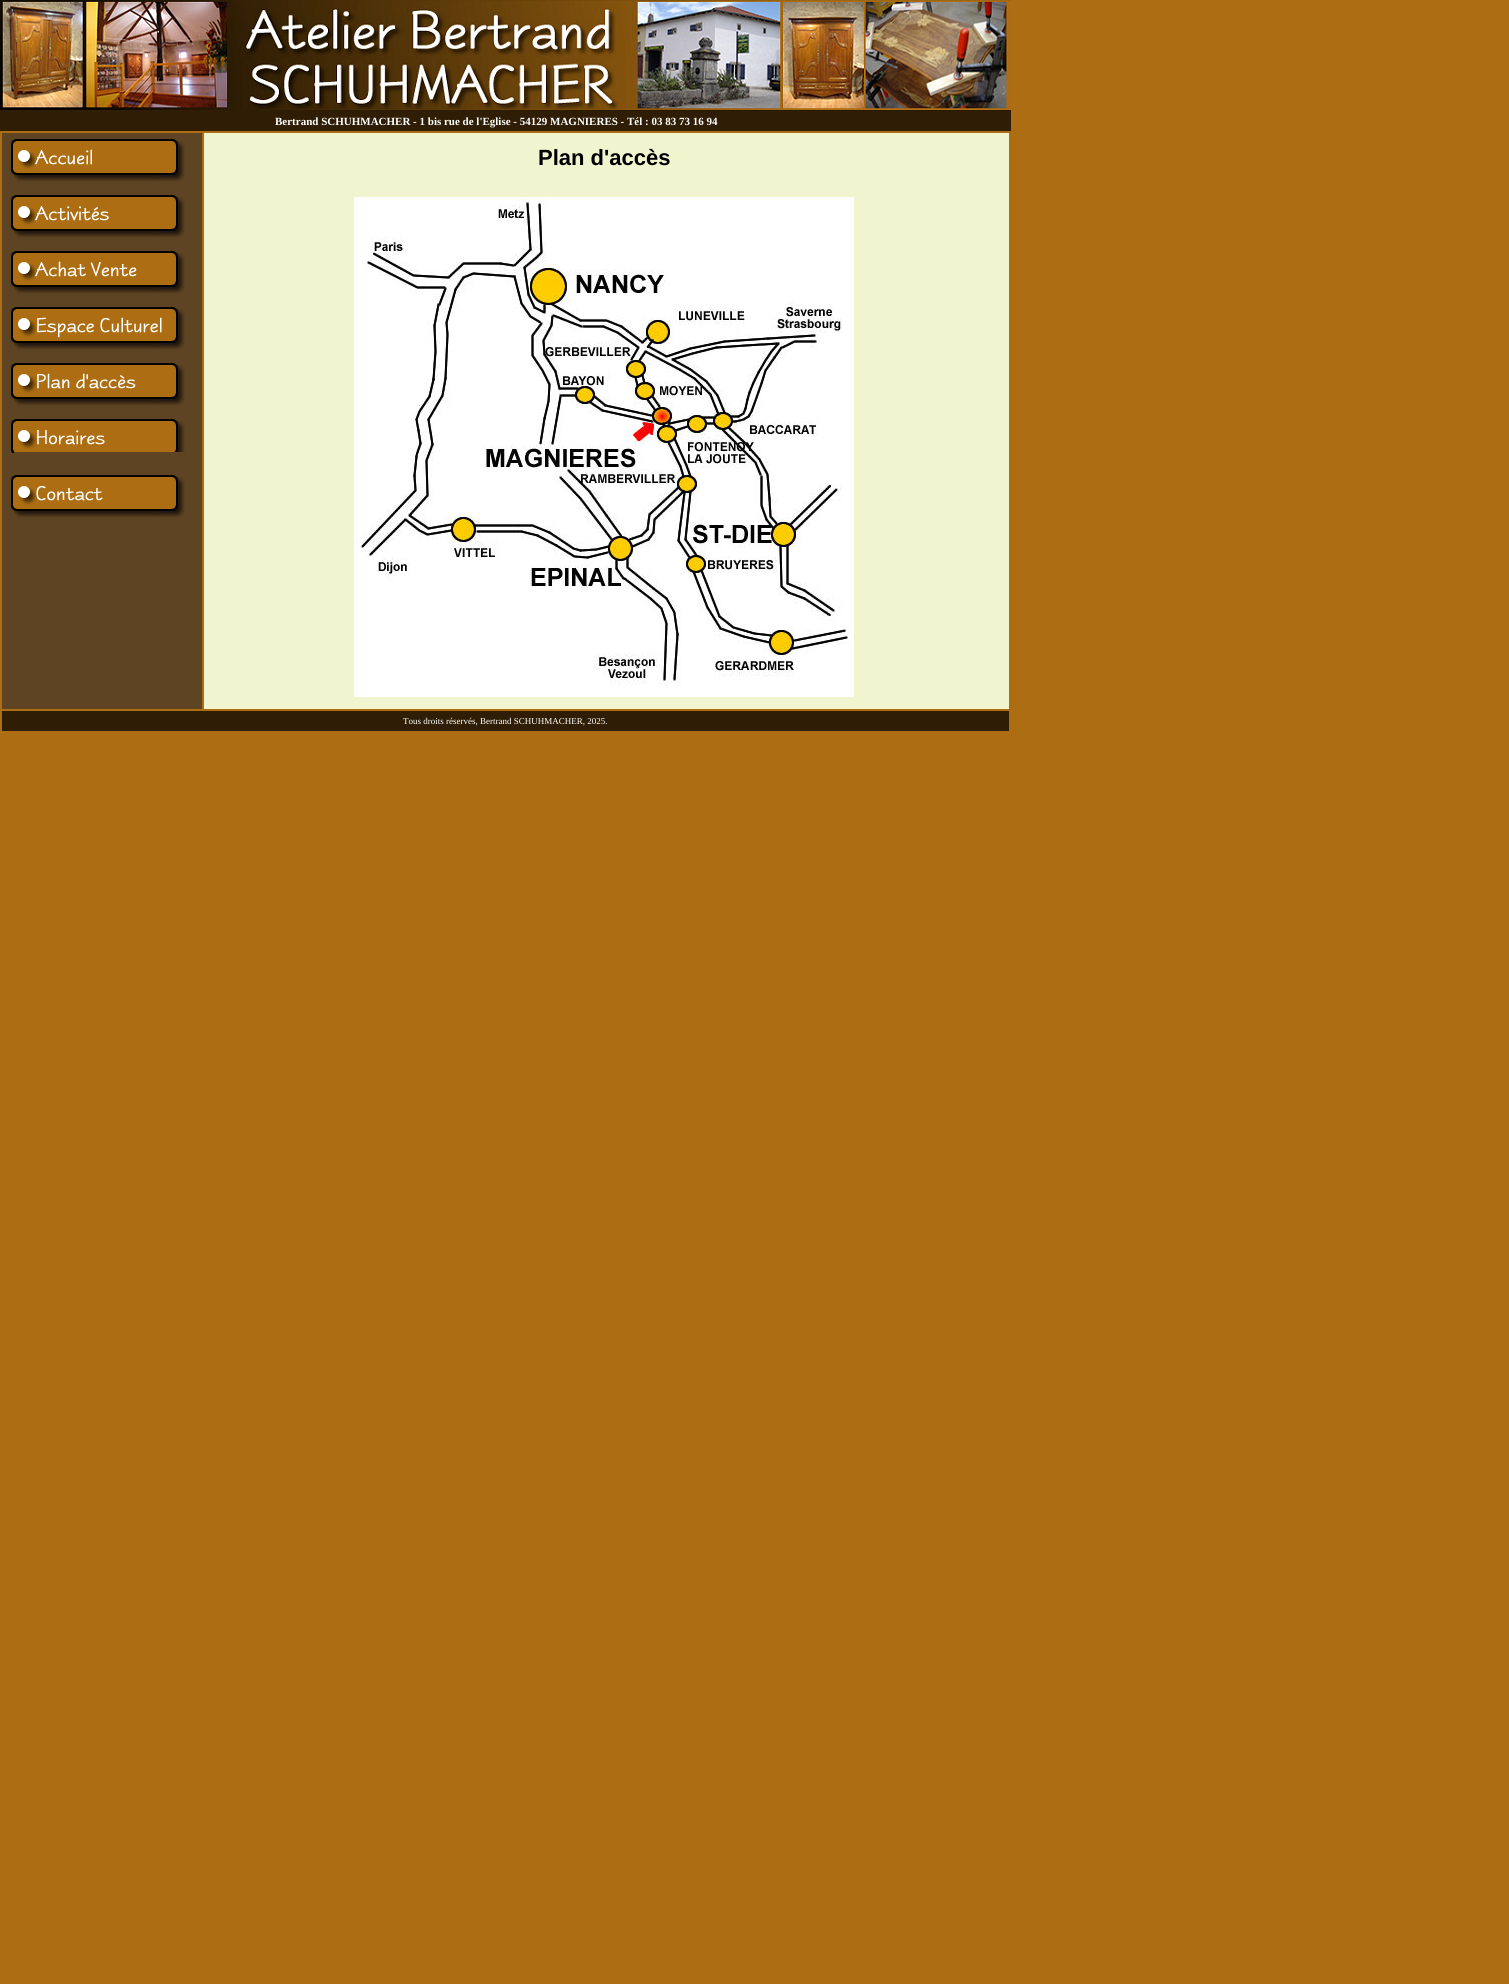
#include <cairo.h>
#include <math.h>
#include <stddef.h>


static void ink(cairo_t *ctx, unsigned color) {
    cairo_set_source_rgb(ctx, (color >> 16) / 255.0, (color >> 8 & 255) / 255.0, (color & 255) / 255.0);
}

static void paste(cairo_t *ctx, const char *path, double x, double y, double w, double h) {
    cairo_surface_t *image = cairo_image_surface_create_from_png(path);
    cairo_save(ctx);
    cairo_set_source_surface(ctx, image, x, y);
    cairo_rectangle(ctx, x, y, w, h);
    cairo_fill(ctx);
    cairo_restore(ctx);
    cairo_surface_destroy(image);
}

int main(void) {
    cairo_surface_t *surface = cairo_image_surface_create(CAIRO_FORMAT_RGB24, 1509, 1984);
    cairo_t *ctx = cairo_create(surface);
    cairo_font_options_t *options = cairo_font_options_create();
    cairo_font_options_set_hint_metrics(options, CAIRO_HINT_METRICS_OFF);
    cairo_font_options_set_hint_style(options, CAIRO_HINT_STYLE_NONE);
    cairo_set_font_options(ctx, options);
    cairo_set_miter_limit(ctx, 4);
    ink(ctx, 0xAD6E13);
    cairo_paint(ctx);
    paste(ctx, "media/1.png", 0, 0, 1011, 111);
    ink(ctx, 0x2F1E05);
    cairo_rectangle(ctx, 0, 111, 1011, 20);
    cairo_fill(ctx);
    cairo_select_font_face(ctx, "Liberation Serif", CAIRO_FONT_SLANT_NORMAL, CAIRO_FONT_WEIGHT_BOLD);
    cairo_set_font_size(ctx, 11);
    ink(ctx, 0xFFFFFF);
    cairo_move_to(ctx, 275, 125);
    cairo_show_text(ctx, "Bertrand SCHUHMACHER - 1 bis rue de l'Eglise - 54129 MAGNIERES - Tél : 03 83 73 16 94");
    ink(ctx, 0x5F4423);
    cairo_rectangle(ctx, 2, 133, 200, 576);
    cairo_fill(ctx);
    paste(ctx, "media/2.png", 11, 139, 174, 43);
    paste(ctx, "media/3.png", 11, 195, 174, 43);
    paste(ctx, "media/4.png", 11, 251, 174, 43);
    paste(ctx, "media/5.png", 11, 307, 174, 43);
    paste(ctx, "media/6.png", 11, 363, 174, 43);
    paste(ctx, "media/7.png", 11, 419, 174, 34);
    paste(ctx, "media/8.png", 11, 475, 174, 43);
    ink(ctx, 0xF0F5CF);
    cairo_rectangle(ctx, 204, 133, 805, 576);
    cairo_fill(ctx);
    cairo_select_font_face(ctx, "Liberation Sans", CAIRO_FONT_SLANT_NORMAL, CAIRO_FONT_WEIGHT_BOLD);
    cairo_set_font_size(ctx, 22);
    ink(ctx, 0x000000);
    cairo_move_to(ctx, 538, 165);
    cairo_show_text(ctx, "Plan d'accès");
    paste(ctx, "media/9.png", 354, 197, 500, 500);
    ink(ctx, 0x2F1E05);
    cairo_rectangle(ctx, 2, 711, 1007, 20);
    cairo_fill(ctx);
    cairo_select_font_face(ctx, "Liberation Serif", CAIRO_FONT_SLANT_NORMAL, CAIRO_FONT_WEIGHT_NORMAL);
    cairo_set_font_size(ctx, 9);
    ink(ctx, 0xFFFFFF);
    cairo_move_to(ctx, 403, 724);
    cairo_show_text(ctx, "Tous droits réservés, Bertrand SCHUHMACHER, 2025.");
    cairo_surface_write_to_png(surface, "image.png");
    cairo_font_options_destroy(options);
    cairo_destroy(ctx);
    cairo_surface_destroy(surface);
    return 0;
}
